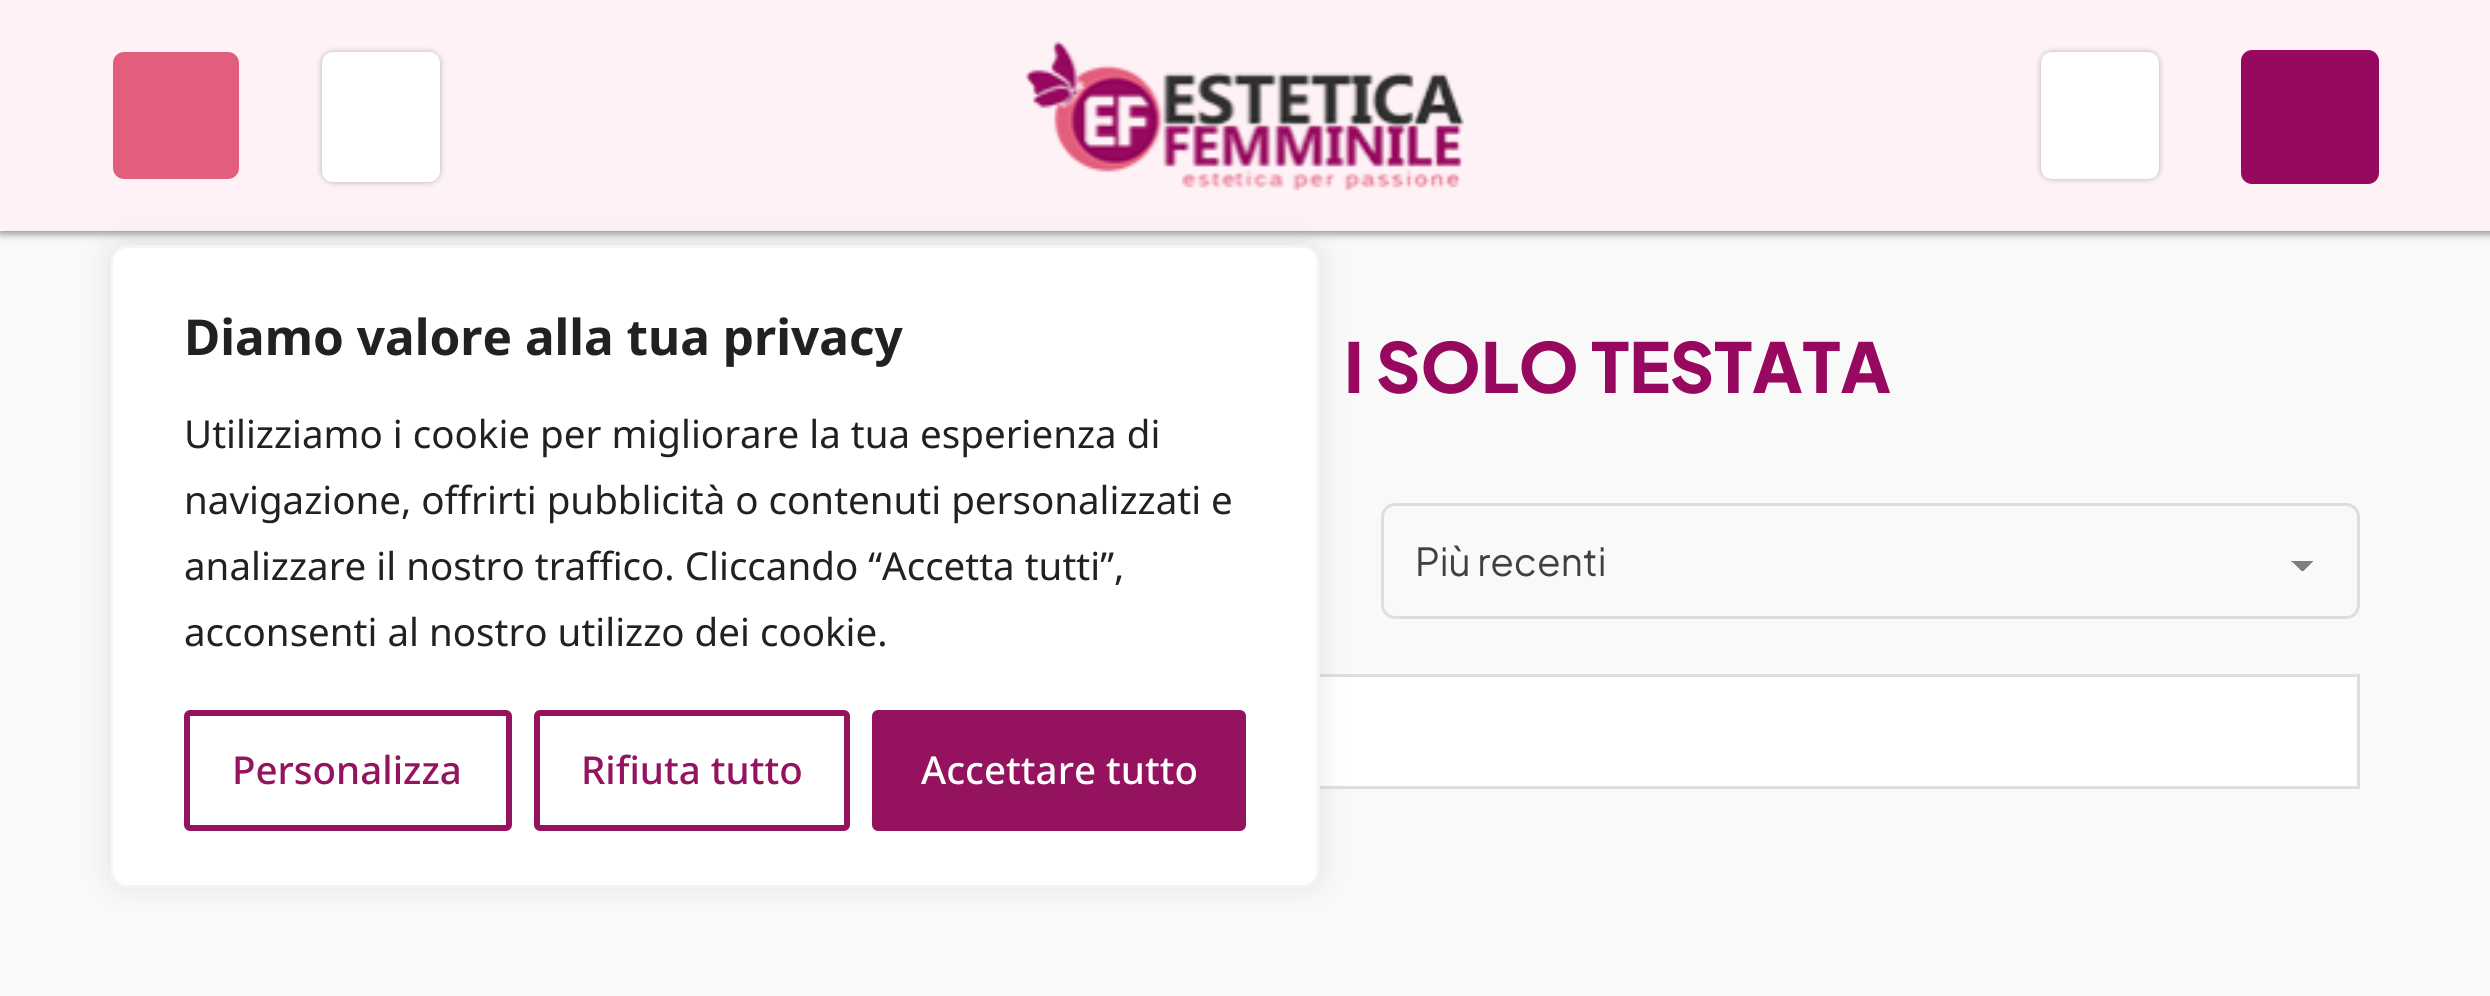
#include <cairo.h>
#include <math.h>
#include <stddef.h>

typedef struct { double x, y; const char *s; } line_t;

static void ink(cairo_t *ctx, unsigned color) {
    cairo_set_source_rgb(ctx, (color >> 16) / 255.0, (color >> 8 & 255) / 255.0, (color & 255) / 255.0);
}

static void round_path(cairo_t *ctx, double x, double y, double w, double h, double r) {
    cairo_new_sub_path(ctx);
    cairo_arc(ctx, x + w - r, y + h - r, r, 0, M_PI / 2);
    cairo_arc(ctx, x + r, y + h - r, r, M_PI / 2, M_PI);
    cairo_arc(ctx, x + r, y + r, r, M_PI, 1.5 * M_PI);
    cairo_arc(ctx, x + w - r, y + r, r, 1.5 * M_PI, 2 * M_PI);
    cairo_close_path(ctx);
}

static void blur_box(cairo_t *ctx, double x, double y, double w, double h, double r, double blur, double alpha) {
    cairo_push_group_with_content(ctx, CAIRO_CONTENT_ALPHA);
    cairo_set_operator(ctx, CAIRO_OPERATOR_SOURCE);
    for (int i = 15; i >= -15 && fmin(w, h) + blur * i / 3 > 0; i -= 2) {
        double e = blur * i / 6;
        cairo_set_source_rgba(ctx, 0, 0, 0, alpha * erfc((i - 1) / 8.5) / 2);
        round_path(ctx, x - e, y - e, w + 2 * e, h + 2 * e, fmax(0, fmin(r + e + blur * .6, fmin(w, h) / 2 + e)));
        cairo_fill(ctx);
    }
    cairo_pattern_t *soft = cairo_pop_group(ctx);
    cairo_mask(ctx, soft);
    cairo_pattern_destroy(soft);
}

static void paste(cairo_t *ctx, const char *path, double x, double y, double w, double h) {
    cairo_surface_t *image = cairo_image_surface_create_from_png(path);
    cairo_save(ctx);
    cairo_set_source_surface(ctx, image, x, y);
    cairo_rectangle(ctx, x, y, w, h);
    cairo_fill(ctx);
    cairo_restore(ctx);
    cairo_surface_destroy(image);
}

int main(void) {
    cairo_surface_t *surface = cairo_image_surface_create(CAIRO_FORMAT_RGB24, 2490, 996);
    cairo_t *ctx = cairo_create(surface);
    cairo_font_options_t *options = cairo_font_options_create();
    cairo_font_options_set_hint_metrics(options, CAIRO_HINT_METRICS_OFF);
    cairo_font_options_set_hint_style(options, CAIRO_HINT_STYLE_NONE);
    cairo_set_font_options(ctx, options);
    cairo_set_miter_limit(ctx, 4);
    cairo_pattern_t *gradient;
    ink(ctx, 0xF9F9F9);
    cairo_paint(ctx);
    ink(ctx, 0x919191);
    blur_box(ctx, 0, 3, 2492, 231, 0, 4, 1);
    ink(ctx, 0xFFF2F7);
    cairo_rectangle(ctx, 0, 0, 2490, 231);
    cairo_fill(ctx);
    ink(ctx, 0xE35E7D);
    round_path(ctx, 113, 52, 126, 127, 11);
    cairo_fill(ctx);
    ink(ctx, 0x000000);
    blur_box(ctx, 322, 52, 118, 130, 11, 3, 0.3);
    ink(ctx, 0xFFFFFF);
    round_path(ctx, 322, 52, 118, 130, 11);
    cairo_fill(ctx);
    paste(ctx, "media/1.png", 1025, 41, 440, 150);
    ink(ctx, 0x000000);
    blur_box(ctx, 2041, 52, 118, 127, 11, 3, 0.3);
    ink(ctx, 0xFFFFFF);
    round_path(ctx, 2041, 52, 118, 127, 11);
    cairo_fill(ctx);
    ink(ctx, 0x97095F);
    round_path(ctx, 2241, 50, 138, 134, 11);
    cairo_fill(ctx);
    ink(ctx, 0xFFFFFF);
    cairo_rectangle(ctx, 1320, 677, 1037, 109);
    cairo_fill(ctx);
    cairo_rectangle(ctx, 133.5, 675.5, 2225, 112);
    ink(ctx, 0xDDDEDF);
    cairo_set_line_width(ctx, 3);
    cairo_stroke(ctx);
    ink(ctx, 0xACABAB);
    blur_box(ctx, 110, 242, 1210, 644, 17, 14, 0.3);
    ink(ctx, 0xFFFFFF);
    round_path(ctx, 111.5, 246.5, 1207, 640, 15.5);
    cairo_fill_preserve(ctx);
    ink(ctx, 0xF4F4F4);
    cairo_stroke(ctx);
    cairo_select_font_face(ctx, "Noto Sans", CAIRO_FONT_SLANT_NORMAL, CAIRO_FONT_WEIGHT_BOLD);
    cairo_set_font_size(ctx, 49.5);
    ink(ctx, 0x212121);
    cairo_move_to(ctx, 184, 355);
    cairo_show_text(ctx, "Diamo valore alla tua privacy");
    cairo_select_font_face(ctx, "Noto Sans", CAIRO_FONT_SLANT_NORMAL, CAIRO_FONT_WEIGHT_NORMAL);
    cairo_set_font_size(ctx, 38.5);
    {
        static const line_t items[] = {
            {184, 448, "Utilizziamo i cookie per migliorare la tua esperienza di"},
            {184, 514, "navigazione, offrirti pubblicità o contenuti personalizzati e"},
            {184, 580, "analizzare il nostro traffico. Cliccando “Accetta tutti”,"},
            {184, 646, "acconsenti al nostro utilizzo dei cookie."},
        };
        for (size_t i = 0; i < sizeof items / sizeof *items; i++) {
            cairo_move_to(ctx, items[i].x, items[i].y);
            cairo_show_text(ctx, items[i].s);
        }
    }
    round_path(ctx, 187, 713, 322, 115, 3);
    ink(ctx, 0x95125F);
    cairo_set_line_width(ctx, 6);
    cairo_stroke(ctx);
    cairo_select_font_face(ctx, "Noto Sans Medium", CAIRO_FONT_SLANT_NORMAL, CAIRO_FONT_WEIGHT_NORMAL);
    cairo_move_to(ctx, 232, 784);
    cairo_show_text(ctx, "Personalizza");
    round_path(ctx, 537, 713, 310, 115, 3);
    cairo_stroke(ctx);
    cairo_move_to(ctx, 581, 784);
    cairo_show_text(ctx, "Rifiuta tutto");
    round_path(ctx, 875, 713, 368, 115, 3);
    cairo_fill_preserve(ctx);
    cairo_stroke(ctx);
    ink(ctx, 0xFFFFFF);
    cairo_move_to(ctx, 921, 784);
    cairo_show_text(ctx, "Accettare tutto");
    cairo_select_font_face(ctx, "Plus Jakarta Sans ExtraBold", CAIRO_FONT_SLANT_NORMAL, CAIRO_FONT_WEIGHT_NORMAL);
    cairo_set_font_size(ctx, 68.75);
    ink(ctx, 0x97095F);
    cairo_move_to(ctx, 1344, 393);
    cairo_show_text(ctx, "I SOLO TESTATA");
    gradient = cairo_pattern_create_linear(2302, 561, 2313, 572);
    cairo_pattern_add_color_stop_rgba(gradient, 0.5, 0.502, 0.502, 0.502, 1);
    cairo_pattern_add_color_stop_rgba(gradient, 0.5, 0.976, 0.976, 0.976, 1);
    cairo_set_source(ctx, gradient);
    cairo_pattern_destroy(gradient);
    cairo_rectangle(ctx, 2302, 561, 11, 10);
    cairo_fill(ctx);
    gradient = cairo_pattern_create_linear(2291, 572, 2302, 561);
    cairo_pattern_add_color_stop_rgba(gradient, 0.5, 0.976, 0.976, 0.976, 1);
    cairo_pattern_add_color_stop_rgba(gradient, 0.5, 0.502, 0.502, 0.502, 1);
    cairo_set_source(ctx, gradient);
    cairo_pattern_destroy(gradient);
    cairo_rectangle(ctx, 2291, 561, 11, 10);
    cairo_fill(ctx);
    round_path(ctx, 1382.5, 504.5, 976, 113, 12.5);
    ink(ctx, 0xDDDEDF);
    cairo_set_line_width(ctx, 3);
    cairo_stroke(ctx);
    cairo_select_font_face(ctx, "Plus Jakarta Sans", CAIRO_FONT_SLANT_NORMAL, CAIRO_FONT_WEIGHT_NORMAL);
    cairo_set_font_size(ctx, 38.5);
    ink(ctx, 0x404040);
    cairo_move_to(ctx, 1415, 576);
    cairo_show_text(ctx, "Più recenti");
    cairo_surface_write_to_png(surface, "image.png");
    cairo_font_options_destroy(options);
    cairo_destroy(ctx);
    cairo_surface_destroy(surface);
    return 0;
}
